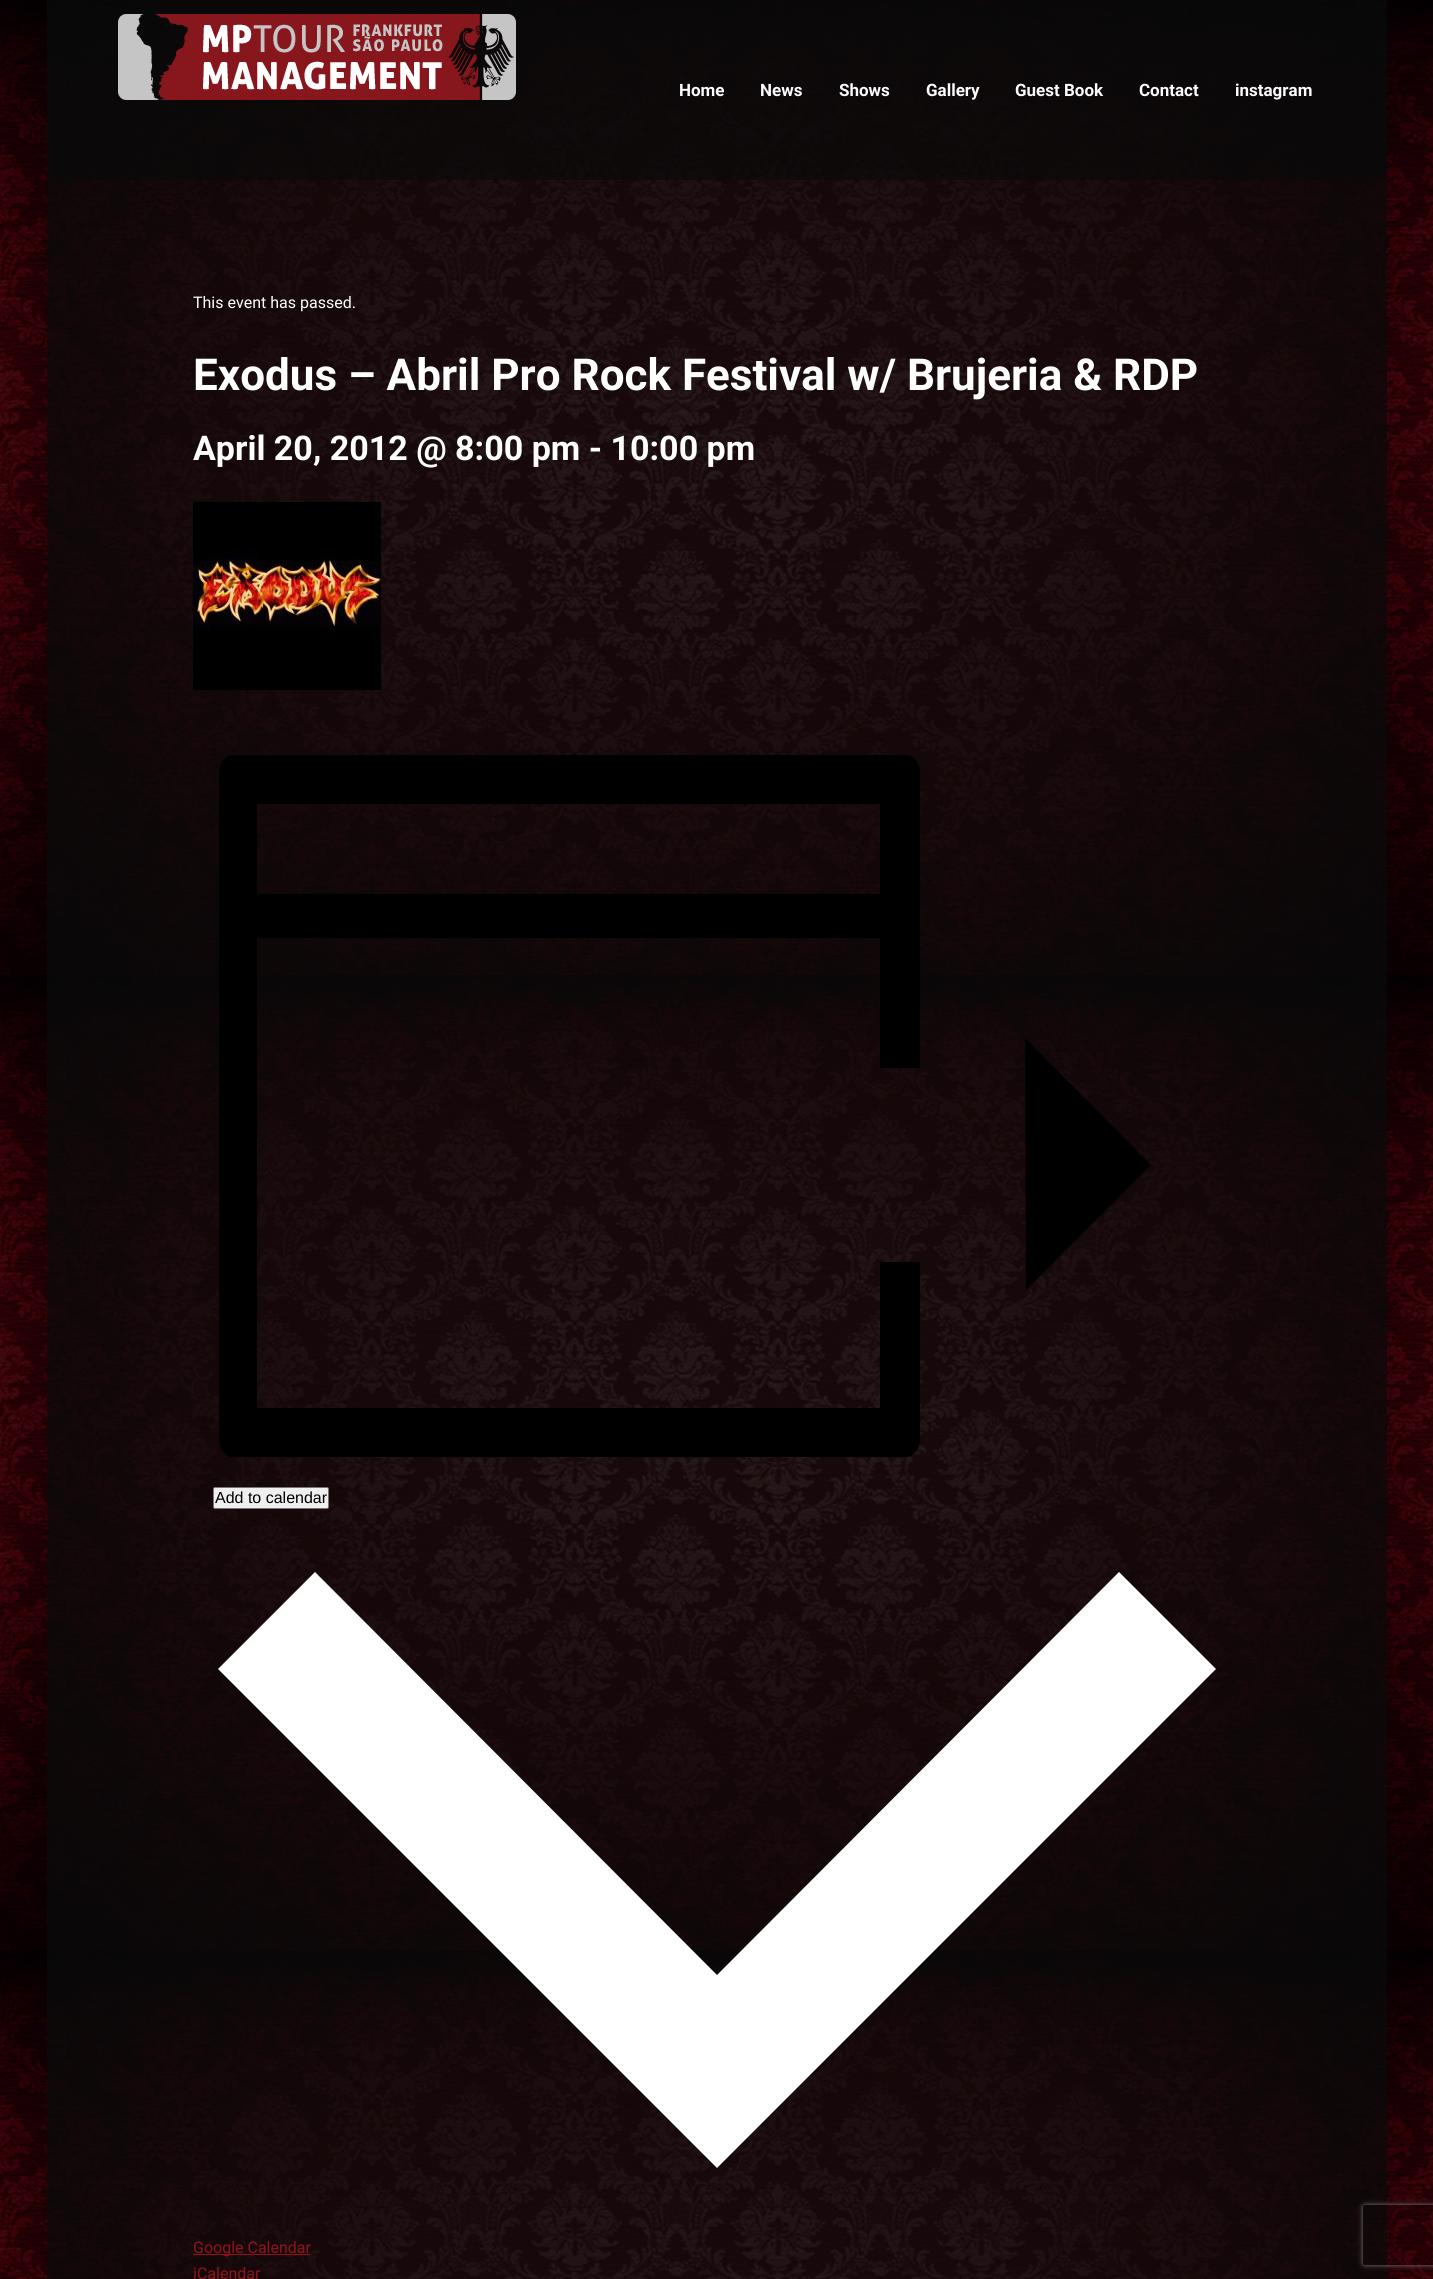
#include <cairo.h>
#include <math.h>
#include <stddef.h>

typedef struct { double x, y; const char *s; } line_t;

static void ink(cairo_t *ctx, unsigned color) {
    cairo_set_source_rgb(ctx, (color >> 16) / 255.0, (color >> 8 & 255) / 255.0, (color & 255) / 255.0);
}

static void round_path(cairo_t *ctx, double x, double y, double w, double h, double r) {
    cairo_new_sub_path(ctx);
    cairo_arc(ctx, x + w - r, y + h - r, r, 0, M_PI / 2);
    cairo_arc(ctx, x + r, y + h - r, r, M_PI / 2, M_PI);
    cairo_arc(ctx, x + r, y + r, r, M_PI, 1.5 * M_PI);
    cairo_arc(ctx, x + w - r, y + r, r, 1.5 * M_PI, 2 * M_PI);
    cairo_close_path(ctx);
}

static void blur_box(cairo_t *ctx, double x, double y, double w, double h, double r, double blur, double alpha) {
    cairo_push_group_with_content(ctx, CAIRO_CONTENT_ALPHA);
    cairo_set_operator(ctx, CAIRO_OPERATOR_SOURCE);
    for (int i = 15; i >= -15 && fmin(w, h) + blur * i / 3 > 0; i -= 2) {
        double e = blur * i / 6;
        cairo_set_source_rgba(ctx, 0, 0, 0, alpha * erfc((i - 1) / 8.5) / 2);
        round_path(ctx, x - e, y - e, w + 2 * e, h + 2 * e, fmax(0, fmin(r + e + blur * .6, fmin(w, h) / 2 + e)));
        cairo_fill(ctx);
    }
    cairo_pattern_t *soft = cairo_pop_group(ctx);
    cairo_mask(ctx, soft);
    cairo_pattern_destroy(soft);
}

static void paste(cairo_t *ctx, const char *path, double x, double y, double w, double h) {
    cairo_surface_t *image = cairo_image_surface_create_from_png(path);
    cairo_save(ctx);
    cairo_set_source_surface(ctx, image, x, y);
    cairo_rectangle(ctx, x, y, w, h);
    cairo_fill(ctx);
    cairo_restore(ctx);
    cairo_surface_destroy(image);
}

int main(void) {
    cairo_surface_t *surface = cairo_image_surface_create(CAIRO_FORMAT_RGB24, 1433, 2279);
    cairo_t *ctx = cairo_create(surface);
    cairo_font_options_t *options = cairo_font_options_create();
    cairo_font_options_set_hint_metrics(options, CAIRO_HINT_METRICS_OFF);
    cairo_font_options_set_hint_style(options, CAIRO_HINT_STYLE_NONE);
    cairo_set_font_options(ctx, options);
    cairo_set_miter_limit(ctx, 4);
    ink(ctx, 0xFFFFFF);
    cairo_paint(ctx);
    paste(ctx, "media/1.png", 0, 0, 1433, 2279);
    cairo_set_source_rgba(ctx, 0.039, 0.039, 0.039, 0.68);
    cairo_rectangle(ctx, 47, 7, 1340, 173);
    cairo_fill(ctx);
    paste(ctx, "media/2.png", 118, 14, 398, 86);
    cairo_select_font_face(ctx, "Roboto", CAIRO_FONT_SLANT_NORMAL, CAIRO_FONT_WEIGHT_BOLD);
    cairo_set_font_size(ctx, 17);
    ink(ctx, 0xFFFFFF);
    {
        static const line_t items[] = {
            {679, 96, "Home"},
            {760, 96, "News"},
            {839, 96, "Shows"},
            {926, 96, "Gallery"},
            {1015, 96, "Guest Book"},
            {1139, 96, "Contact"},
            {1235, 96, "instagram"},
        };
        for (size_t i = 0; i < sizeof items / sizeof *items; i++) {
            cairo_move_to(ctx, items[i].x, items[i].y);
            cairo_show_text(ctx, items[i].s);
        }
    }
    cairo_select_font_face(ctx, "Roboto", CAIRO_FONT_SLANT_NORMAL, CAIRO_FONT_WEIGHT_NORMAL);
    cairo_set_font_size(ctx, 16);
    cairo_move_to(ctx, 193, 308);
    cairo_show_text(ctx, "This event has passed.");
    cairo_select_font_face(ctx, "Roboto", CAIRO_FONT_SLANT_NORMAL, CAIRO_FONT_WEIGHT_BOLD);
    cairo_set_font_size(ctx, 44);
    cairo_move_to(ctx, 193, 390);
    cairo_show_text(ctx, "Exodus – Abril Pro Rock Festival w/ Brujeria & RDP");
    cairo_set_font_size(ctx, 34);
    cairo_move_to(ctx, 193, 460);
    cairo_show_text(ctx, "April 20, 2012 @ 8:00 pm - 10:00 pm");
    paste(ctx, "media/3.png", 193, 502, 188, 188);
    ink(ctx, 0x000000);
    cairo_set_fill_rule(ctx, CAIRO_FILL_RULE_EVEN_ODD);
    cairo_new_path(ctx);
    cairo_move_to(ctx, 219, 772);
    cairo_line_to(ctx, 219, 1440);
    cairo_curve_to(ctx, 219, 1449, 225, 1457, 233, 1457);
    cairo_line_to(ctx, 906, 1457);
    cairo_curve_to(ctx, 913, 1457, 920, 1449, 920, 1440);
    cairo_line_to(ctx, 920, 772);
    cairo_curve_to(ctx, 920, 763, 913, 755, 906, 755);
    cairo_line_to(ctx, 233, 755);
    cairo_curve_to(ctx, 225, 755, 219, 763, 219, 772);
    cairo_close_path(ctx);
    cairo_move_to(ctx, 920, 1068);
    cairo_line_to(ctx, 880, 1068);
    cairo_line_to(ctx, 880, 938);
    cairo_line_to(ctx, 257, 938);
    cairo_line_to(ctx, 257, 1408);
    cairo_line_to(ctx, 880, 1408);
    cairo_line_to(ctx, 880, 1262);
    cairo_line_to(ctx, 920, 1262);
    cairo_close_path(ctx);
    cairo_move_to(ctx, 257, 804);
    cairo_line_to(ctx, 880, 804);
    cairo_line_to(ctx, 880, 894);
    cairo_line_to(ctx, 257, 894);
    cairo_close_path(ctx);
    cairo_fill(ctx);
    cairo_set_fill_rule(ctx, CAIRO_FILL_RULE_WINDING);
    cairo_new_path(ctx);
    cairo_move_to(ctx, 1111, 1165);
    cairo_line_to(ctx, 577, 1165);
    cairo_move_to(ctx, 1025, 1038);
    cairo_line_to(ctx, 1151, 1165);
    cairo_line_to(ctx, 1026, 1290);
    cairo_fill(ctx);
    ink(ctx, 0xEFEFEF);
    round_path(ctx, 213.5, 1487.5, 115, 21, 1.5);
    cairo_fill_preserve(ctx);
    ink(ctx, 0x767676);
    cairo_set_line_width(ctx, 1);
    cairo_stroke(ctx);
    cairo_select_font_face(ctx, "Liberation Sans", CAIRO_FONT_SLANT_NORMAL, CAIRO_FONT_WEIGHT_NORMAL);
    cairo_set_font_size(ctx, 16);
    ink(ctx, 0x000000);
    cairo_move_to(ctx, 215, 1503);
    cairo_show_text(ctx, "Add to calendar");
    ink(ctx, 0xFFFFFF);
    cairo_set_fill_rule(ctx, CAIRO_FILL_RULE_EVEN_ODD);
    cairo_new_path(ctx);
    cairo_move_to(ctx, 315, 1572);
    cairo_line_to(ctx, 717, 1975);
    cairo_line_to(ctx, 1119, 1572);
    cairo_line_to(ctx, 1216, 1669);
    cairo_line_to(ctx, 717, 2168);
    cairo_line_to(ctx, 218, 1669);
    cairo_close_path(ctx);
    cairo_fill(ctx);
    ink(ctx, 0x92131C);
    cairo_rectangle(ctx, 193, 2254, 117, 1);
    cairo_fill(ctx);
    cairo_select_font_face(ctx, "Roboto", CAIRO_FONT_SLANT_NORMAL, CAIRO_FONT_WEIGHT_NORMAL);
    cairo_move_to(ctx, 193, 2253);
    cairo_show_text(ctx, "Google Calendar");
    cairo_move_to(ctx, 193, 2279);
    cairo_show_text(ctx, "iCalendar");
    cairo_save(ctx);
    cairo_new_path(ctx);
    cairo_move_to(ctx, 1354, 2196);
    cairo_line_to(ctx, 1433, 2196);
    cairo_line_to(ctx, 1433, 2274);
    cairo_line_to(ctx, 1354, 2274);
    cairo_close_path(ctx);
    cairo_move_to(ctx, 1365, 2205);
    cairo_line_to(ctx, 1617, 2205);
    cairo_curve_to(ctx, 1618, 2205, 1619, 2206, 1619, 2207);
    cairo_line_to(ctx, 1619, 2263);
    cairo_curve_to(ctx, 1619, 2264, 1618, 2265, 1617, 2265);
    cairo_line_to(ctx, 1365, 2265);
    cairo_curve_to(ctx, 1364, 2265, 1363, 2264, 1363, 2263);
    cairo_line_to(ctx, 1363, 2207);
    cairo_curve_to(ctx, 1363, 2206, 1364, 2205, 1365, 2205);
    cairo_close_path(ctx);
    cairo_clip(ctx);
    ink(ctx, 0x808080);
    blur_box(ctx, 1363, 2205, 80, 60, 2, 2.5, 1);
    cairo_restore(ctx);
    cairo_surface_write_to_png(surface, "image.png");
    cairo_font_options_destroy(options);
    cairo_destroy(ctx);
    cairo_surface_destroy(surface);
    return 0;
}
